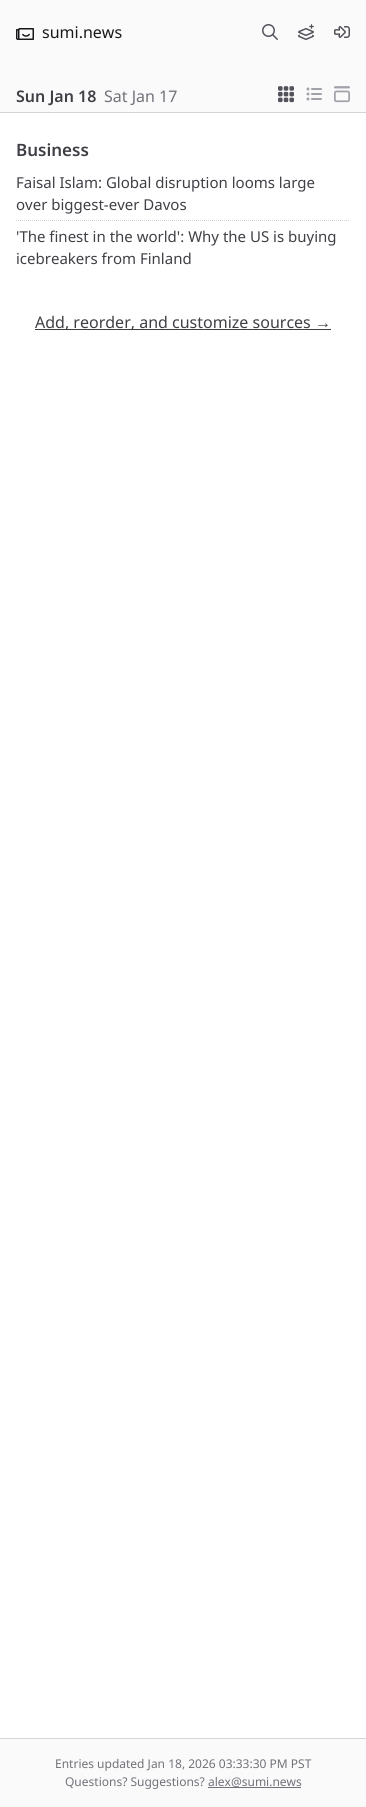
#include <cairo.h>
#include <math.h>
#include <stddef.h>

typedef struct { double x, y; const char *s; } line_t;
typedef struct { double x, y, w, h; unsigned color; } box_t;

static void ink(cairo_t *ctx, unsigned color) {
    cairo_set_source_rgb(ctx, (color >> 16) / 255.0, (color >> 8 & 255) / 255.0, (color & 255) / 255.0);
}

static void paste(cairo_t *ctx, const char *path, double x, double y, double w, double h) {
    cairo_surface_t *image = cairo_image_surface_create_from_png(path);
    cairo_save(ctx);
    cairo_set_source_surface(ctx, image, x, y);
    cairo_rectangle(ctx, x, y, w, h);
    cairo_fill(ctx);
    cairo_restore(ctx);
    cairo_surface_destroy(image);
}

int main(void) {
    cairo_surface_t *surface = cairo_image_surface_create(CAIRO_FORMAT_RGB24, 366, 1807);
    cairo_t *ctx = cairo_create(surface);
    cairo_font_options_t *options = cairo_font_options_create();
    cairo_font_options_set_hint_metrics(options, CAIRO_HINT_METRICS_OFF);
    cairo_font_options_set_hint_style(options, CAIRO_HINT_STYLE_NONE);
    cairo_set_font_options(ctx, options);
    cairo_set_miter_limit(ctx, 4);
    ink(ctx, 0xFAFAFA);
    cairo_paint(ctx);
    paste(ctx, "media/1.png", 16, 28, 18, 12);
    cairo_select_font_face(ctx, "Noto Sans", CAIRO_FONT_SLANT_NORMAL, CAIRO_FONT_WEIGHT_NORMAL);
    cairo_set_font_size(ctx, 16);
    ink(ctx, 0x18181B);
    cairo_move_to(ctx, 42, 38);
    cairo_show_text(ctx, "sumi.news");
    paste(ctx, "media/2.png", 262, 24, 16, 16);
    paste(ctx, "media/3.png", 298, 24, 16, 16);
    paste(ctx, "media/4.png", 334, 26, 16, 12);
    cairo_select_font_face(ctx, "Noto Sans SemiBold", CAIRO_FONT_SLANT_NORMAL, CAIRO_FONT_WEIGHT_NORMAL);
    ink(ctx, 0x3F3F46);
    cairo_move_to(ctx, 16, 102);
    cairo_show_text(ctx, "Sun Jan 18");
    cairo_select_font_face(ctx, "Noto Sans", CAIRO_FONT_SLANT_NORMAL, CAIRO_FONT_WEIGHT_NORMAL);
    ink(ctx, 0x71717A);
    cairo_move_to(ctx, 104, 102);
    cairo_show_text(ctx, "Sat Jan 17");
    paste(ctx, "media/5.png", 278, 86, 16, 17);
    paste(ctx, "media/6.png", 306, 87, 16, 14);
    paste(ctx, "media/7.png", 334, 86, 16, 17);
    {
        static const box_t items[] = {
            {0, 113, 366, 1625, 0xFFFFFF},
            {0, 112, 366, 1, 0xD4D4D8},
            {0, 1738, 366, 1, 0xD4D4D8},
        };
        for (size_t i = 0; i < sizeof items / sizeof *items; i++) {
            ink(ctx, items[i].color);
            cairo_rectangle(ctx, items[i].x, items[i].y, items[i].w, items[i].h);
            cairo_fill(ctx);
        }
    }
    cairo_select_font_face(ctx, "Noto Sans SemiBold", CAIRO_FONT_SLANT_NORMAL, CAIRO_FONT_WEIGHT_NORMAL);
    cairo_set_font_size(ctx, 17);
    ink(ctx, 0x3F3F46);
    cairo_move_to(ctx, 16, 156);
    cairo_show_text(ctx, "Business");
    cairo_new_path(ctx);
    cairo_move_to(ctx, 16, 220.5);
    cairo_line_to(ctx, 350, 220.5);
    ink(ctx, 0xD4D4D8);
    cairo_set_line_width(ctx, 1);
    cairo_set_dash(ctx, (double[]){1, 1}, 2, 0);
    cairo_stroke(ctx);
    cairo_select_font_face(ctx, "Noto Sans", CAIRO_FONT_SLANT_NORMAL, CAIRO_FONT_WEIGHT_NORMAL);
    cairo_set_font_size(ctx, 15);
    ink(ctx, 0x3F3F46);
    {
        static const line_t items[] = {
            {16, 188, "Faisal Islam: Global disruption looms large"},
            {16, 210, "over biggest-ever Davos"},
            {16, 242, "'The finest in the world': Why the US is buying"},
            {16, 264, "icebreakers from Finland"},
        };
        for (size_t i = 0; i < sizeof items / sizeof *items; i++) {
            cairo_move_to(ctx, items[i].x, items[i].y);
            cairo_show_text(ctx, items[i].s);
        }
    }
    cairo_rectangle(ctx, 35, 329, 296, 1);
    cairo_fill(ctx);
    cairo_set_font_size(ctx, 16);
    cairo_move_to(ctx, 35, 328);
    cairo_show_text(ctx, "Add, reorder, and customize sources");
    cairo_select_font_face(ctx, "Liberation Sans", CAIRO_FONT_SLANT_NORMAL, CAIRO_FONT_WEIGHT_NORMAL);
    cairo_move_to(ctx, 315, 328);
    cairo_show_text(ctx, "→");
    cairo_select_font_face(ctx, "Noto Sans", CAIRO_FONT_SLANT_NORMAL, CAIRO_FONT_WEIGHT_NORMAL);
    cairo_set_font_size(ctx, 12);
    ink(ctx, 0x71717A);
    cairo_move_to(ctx, 55, 1768);
    cairo_show_text(ctx, "Entries updated Jan 18, 2026 03:33:30 PM PST");
    cairo_move_to(ctx, 65, 1786);
    cairo_show_text(ctx, "Questions? Suggestions?");
    cairo_rectangle(ctx, 208, 1787, 93, 1);
    cairo_fill(ctx);
    cairo_move_to(ctx, 208, 1786);
    cairo_show_text(ctx, "alex@sumi.news");
    cairo_surface_write_to_png(surface, "image.png");
    cairo_font_options_destroy(options);
    cairo_destroy(ctx);
    cairo_surface_destroy(surface);
    return 0;
}
